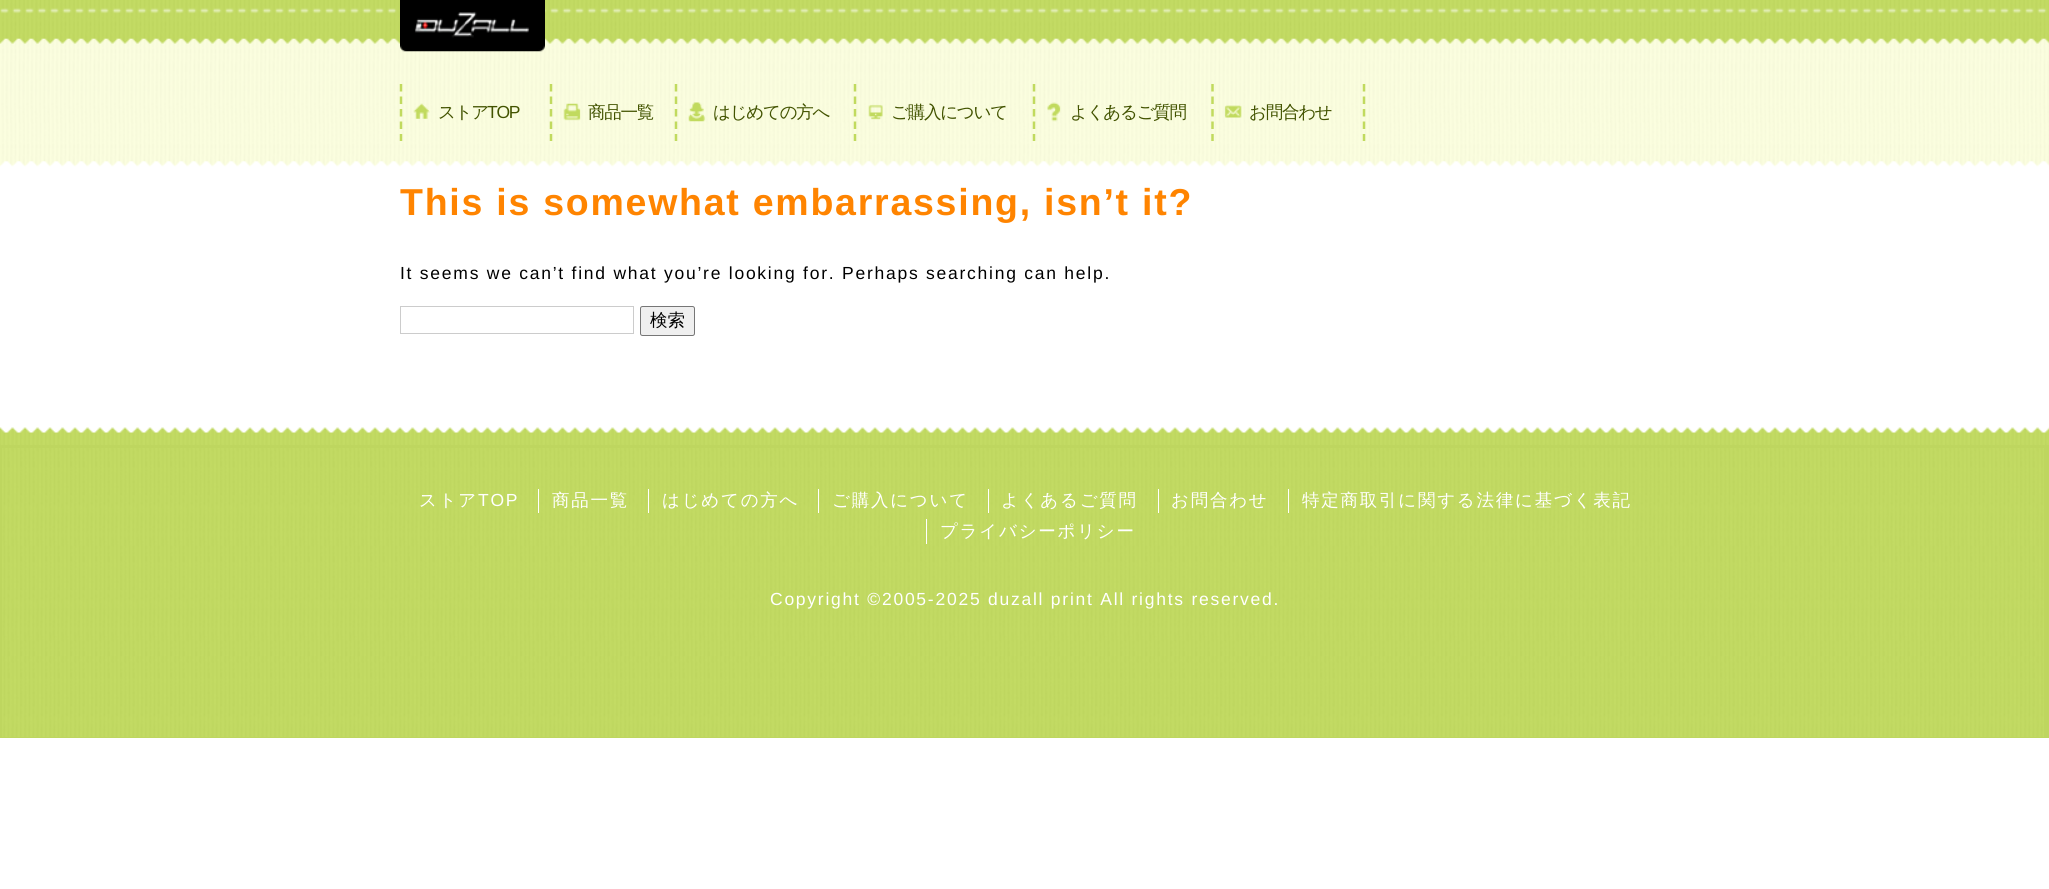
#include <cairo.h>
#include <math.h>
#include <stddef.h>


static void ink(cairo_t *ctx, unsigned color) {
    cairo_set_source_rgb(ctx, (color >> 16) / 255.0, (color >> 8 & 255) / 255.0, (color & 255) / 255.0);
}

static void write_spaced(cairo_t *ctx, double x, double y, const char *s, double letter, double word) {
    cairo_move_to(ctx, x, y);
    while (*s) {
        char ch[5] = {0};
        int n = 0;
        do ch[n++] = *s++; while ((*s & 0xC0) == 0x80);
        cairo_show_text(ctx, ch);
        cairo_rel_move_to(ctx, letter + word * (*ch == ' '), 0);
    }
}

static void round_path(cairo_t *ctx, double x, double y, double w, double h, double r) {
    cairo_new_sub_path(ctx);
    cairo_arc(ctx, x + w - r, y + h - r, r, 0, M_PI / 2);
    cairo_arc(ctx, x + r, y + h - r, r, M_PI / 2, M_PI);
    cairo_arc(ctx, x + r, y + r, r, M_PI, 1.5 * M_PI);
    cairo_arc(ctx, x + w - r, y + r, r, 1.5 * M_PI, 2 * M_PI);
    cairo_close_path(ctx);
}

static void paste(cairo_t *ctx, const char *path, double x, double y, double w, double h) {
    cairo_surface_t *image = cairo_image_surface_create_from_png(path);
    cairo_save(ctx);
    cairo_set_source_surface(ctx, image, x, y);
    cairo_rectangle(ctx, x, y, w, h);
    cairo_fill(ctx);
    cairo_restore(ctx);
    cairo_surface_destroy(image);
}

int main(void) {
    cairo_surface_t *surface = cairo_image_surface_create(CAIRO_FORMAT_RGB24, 2049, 889);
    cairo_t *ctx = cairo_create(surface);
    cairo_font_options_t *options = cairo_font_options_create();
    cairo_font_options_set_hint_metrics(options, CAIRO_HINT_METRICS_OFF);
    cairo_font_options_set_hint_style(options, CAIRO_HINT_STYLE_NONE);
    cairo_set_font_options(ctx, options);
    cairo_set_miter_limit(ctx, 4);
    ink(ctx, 0xFFFFFF);
    cairo_paint(ctx);
    paste(ctx, "media/1.png", 0, 0, 2049, 167);
    paste(ctx, "media/2.png", 400, 0, 145, 52);
    paste(ctx, "media/3.png", 413, 103, 17, 16);
    cairo_new_path(ctx);
    cairo_move_to(ctx, 401, 84);
    cairo_line_to(ctx, 401, 141);
    ink(ctx, 0xC1DA5E);
    cairo_set_line_width(ctx, 2.5);
    cairo_set_dash(ctx, (double[]){7.5, 5}, 2, 0);
    cairo_stroke(ctx);
    cairo_select_font_face(ctx, "WenQuanYi Zen Hei Medium", CAIRO_FONT_SLANT_NORMAL, CAIRO_FONT_WEIGHT_NORMAL);
    cairo_set_font_size(ctx, 17.5);
    ink(ctx, 0x425300);
    write_spaced(ctx, 438, 118, "ストア", -1.25, 0);
    cairo_select_font_face(ctx, "Liberation Sans", CAIRO_FONT_SLANT_NORMAL, CAIRO_FONT_WEIGHT_NORMAL);
    write_spaced(ctx, 487, 118, "TOP", -1.25, 0);
    paste(ctx, "media/4.png", 563, 103, 18, 18);
    cairo_new_path(ctx);
    cairo_move_to(ctx, 551, 84);
    cairo_line_to(ctx, 551, 141);
    ink(ctx, 0xC1DA5E);
    cairo_stroke(ctx);
    cairo_select_font_face(ctx, "WenQuanYi Zen Hei Medium", CAIRO_FONT_SLANT_NORMAL, CAIRO_FONT_WEIGHT_NORMAL);
    ink(ctx, 0x425300);
    write_spaced(ctx, 588, 118, "商品一覧", -1.25, 0);
    paste(ctx, "media/5.png", 688, 102, 18, 20);
    cairo_new_path(ctx);
    cairo_move_to(ctx, 676, 84);
    cairo_line_to(ctx, 676, 141);
    ink(ctx, 0xC1DA5E);
    cairo_stroke(ctx);
    ink(ctx, 0x425300);
    write_spaced(ctx, 713, 118, "はじめての方へ", -1.25, 0);
    paste(ctx, "media/6.png", 868, 104, 15, 16);
    cairo_new_path(ctx);
    cairo_move_to(ctx, 855, 84);
    cairo_line_to(ctx, 855, 141);
    ink(ctx, 0xC1DA5E);
    cairo_stroke(ctx);
    ink(ctx, 0x425300);
    write_spaced(ctx, 891, 118, "ご購入について", -1.25, 0);
    paste(ctx, "media/7.png", 1047, 102, 14, 20);
    cairo_new_path(ctx);
    cairo_move_to(ctx, 1034, 84);
    cairo_line_to(ctx, 1034, 141);
    ink(ctx, 0xC1DA5E);
    cairo_stroke(ctx);
    ink(ctx, 0x425300);
    write_spaced(ctx, 1070, 118, "よくあるご質問", -1.25, 0);
    paste(ctx, "media/8.png", 1224, 105, 18, 13);
    cairo_new_path(ctx);
    cairo_move_to(ctx, 1364, 84);
    cairo_line_to(ctx, 1364, 141);
    ink(ctx, 0xC1DA5E);
    cairo_stroke(ctx);
    cairo_new_path(ctx);
    cairo_move_to(ctx, 1212.5, 84);
    cairo_line_to(ctx, 1212.5, 141);
    cairo_stroke(ctx);
    ink(ctx, 0x425300);
    write_spaced(ctx, 1249, 118, "お問合わせ", -1.25, 0);
    cairo_select_font_face(ctx, "Liberation Sans", CAIRO_FONT_SLANT_NORMAL, CAIRO_FONT_WEIGHT_BOLD);
    cairo_set_font_size(ctx, 37.5);
    ink(ctx, 0xFF8400);
    write_spaced(ctx, 400, 215, "This is somewhat embarrassing, isn’t it?", 1.75, 0);
    cairo_select_font_face(ctx, "Liberation Sans", CAIRO_FONT_SLANT_NORMAL, CAIRO_FONT_WEIGHT_NORMAL);
    cairo_set_font_size(ctx, 17.5);
    ink(ctx, 0x000000);
    write_spaced(ctx, 400, 279, "It seems we can’t find what you’re looking for. Perhaps searching can help.", 1.75, 0);
    cairo_rectangle(ctx, 400.5, 306.5, 233, 27);
    ink(ctx, 0xCCCCCC);
    cairo_set_line_width(ctx, 1);
    cairo_set_dash(ctx, NULL, 0, 0);
    cairo_stroke(ctx);
    ink(ctx, 0xEFEFEF);
    round_path(ctx, 640.5, 306.5, 54, 29, 2);
    cairo_fill_preserve(ctx);
    ink(ctx, 0x767676);
    cairo_stroke(ctx);
    cairo_select_font_face(ctx, "WenQuanYi Zen Hei Medium", CAIRO_FONT_SLANT_NORMAL, CAIRO_FONT_WEIGHT_NORMAL);
    ink(ctx, 0x000000);
    cairo_move_to(ctx, 650, 326);
    cairo_show_text(ctx, "検索");
    paste(ctx, "media/9.png", 0, 427, 2049, 18);
    ink(ctx, 0xBED65F);
    cairo_rectangle(ctx, 0, 445, 2049, 293);
    cairo_fill(ctx);
    paste(ctx, "media/10.png", 2, 448, 2042, 289);
    ink(ctx, 0xFFFFFF);
    write_spaced(ctx, 419, 506, "ストア", 1.75, 0);
    cairo_select_font_face(ctx, "Liberation Sans", CAIRO_FONT_SLANT_NORMAL, CAIRO_FONT_WEIGHT_NORMAL);
    write_spaced(ctx, 478, 506, "TOP", 1.75, 0);
    cairo_rectangle(ctx, 538, 489, 1, 24);
    cairo_fill(ctx);
    cairo_select_font_face(ctx, "WenQuanYi Zen Hei Medium", CAIRO_FONT_SLANT_NORMAL, CAIRO_FONT_WEIGHT_NORMAL);
    write_spaced(ctx, 552, 506, "商品一覧", 1.75, 0);
    cairo_rectangle(ctx, 648, 489, 1, 24);
    cairo_fill(ctx);
    write_spaced(ctx, 662, 506, "はじめての方へ", 1.75, 0);
    cairo_rectangle(ctx, 818, 489, 1, 24);
    cairo_fill(ctx);
    write_spaced(ctx, 832, 506, "ご購入について", 1.75, 0);
    cairo_rectangle(ctx, 988, 489, 1, 24);
    cairo_fill(ctx);
    write_spaced(ctx, 1001, 506, "よくあるご質問", 1.75, 0);
    cairo_rectangle(ctx, 1158, 489, 1, 24);
    cairo_fill(ctx);
    write_spaced(ctx, 1171, 506, "お問合わせ", 1.75, 0);
    cairo_rectangle(ctx, 1288, 489, 1, 24);
    cairo_fill(ctx);
    write_spaced(ctx, 1302, 506, "特定商取引に関する法律に基づく表記", 1.75, 0);
    cairo_rectangle(ctx, 926, 519, 1, 25);
    cairo_fill(ctx);
    write_spaced(ctx, 940, 537, "プライバシーポリシー", 1.75, 0);
    cairo_select_font_face(ctx, "Liberation Sans", CAIRO_FONT_SLANT_NORMAL, CAIRO_FONT_WEIGHT_NORMAL);
    write_spaced(ctx, 770, 605, "Copyright ©2005-2025 duzall print All rights reserved.", 1.75, 0);
    cairo_surface_write_to_png(surface, "image.png");
    cairo_font_options_destroy(options);
    cairo_destroy(ctx);
    cairo_surface_destroy(surface);
    return 0;
}
